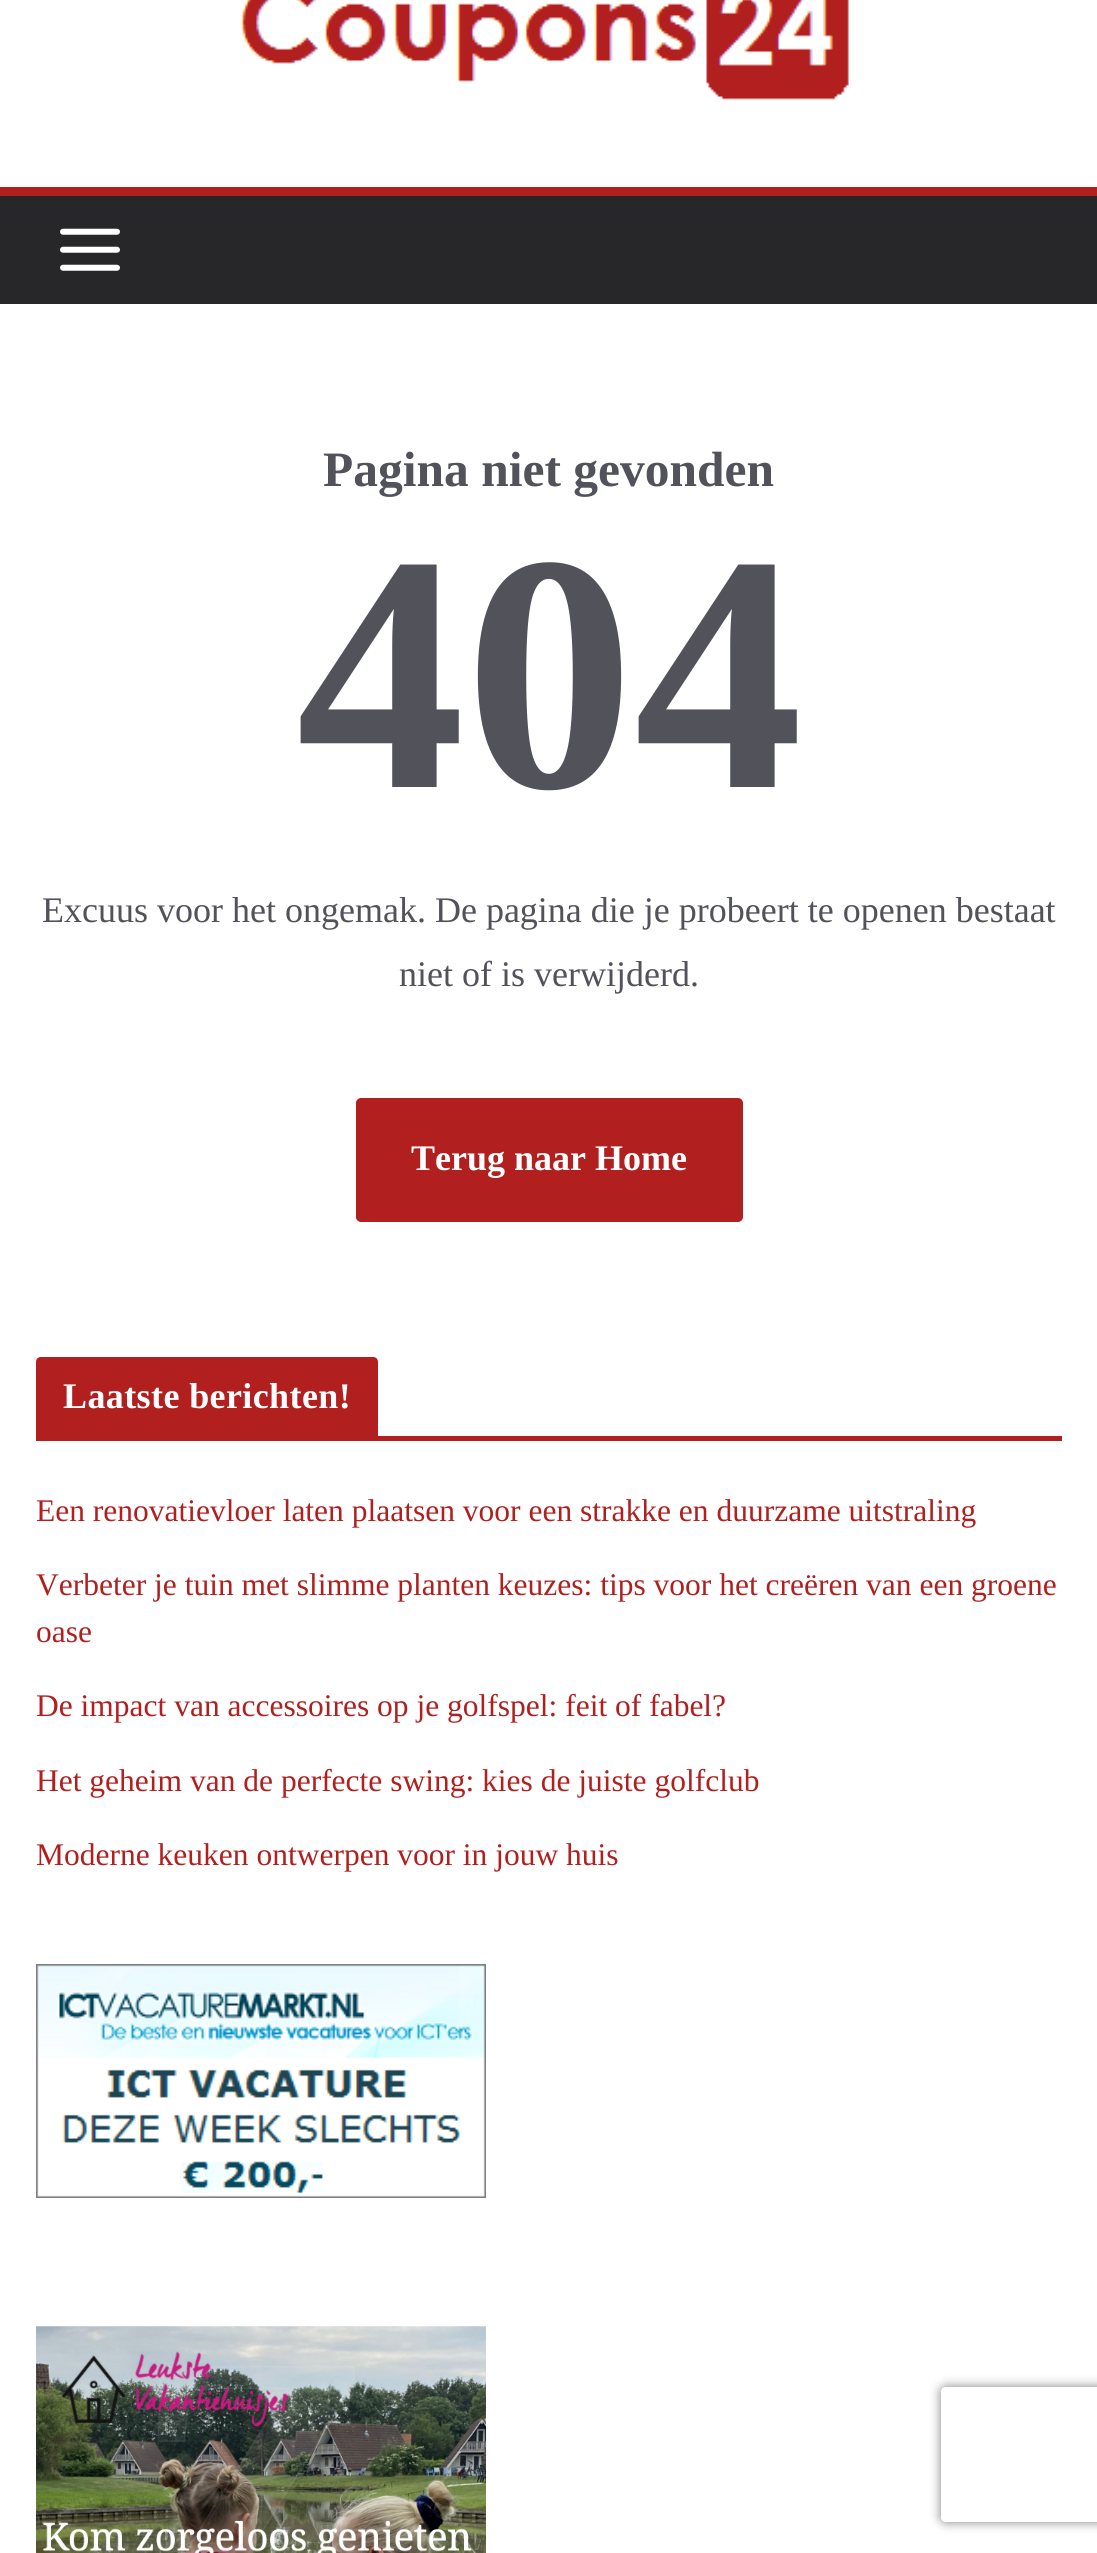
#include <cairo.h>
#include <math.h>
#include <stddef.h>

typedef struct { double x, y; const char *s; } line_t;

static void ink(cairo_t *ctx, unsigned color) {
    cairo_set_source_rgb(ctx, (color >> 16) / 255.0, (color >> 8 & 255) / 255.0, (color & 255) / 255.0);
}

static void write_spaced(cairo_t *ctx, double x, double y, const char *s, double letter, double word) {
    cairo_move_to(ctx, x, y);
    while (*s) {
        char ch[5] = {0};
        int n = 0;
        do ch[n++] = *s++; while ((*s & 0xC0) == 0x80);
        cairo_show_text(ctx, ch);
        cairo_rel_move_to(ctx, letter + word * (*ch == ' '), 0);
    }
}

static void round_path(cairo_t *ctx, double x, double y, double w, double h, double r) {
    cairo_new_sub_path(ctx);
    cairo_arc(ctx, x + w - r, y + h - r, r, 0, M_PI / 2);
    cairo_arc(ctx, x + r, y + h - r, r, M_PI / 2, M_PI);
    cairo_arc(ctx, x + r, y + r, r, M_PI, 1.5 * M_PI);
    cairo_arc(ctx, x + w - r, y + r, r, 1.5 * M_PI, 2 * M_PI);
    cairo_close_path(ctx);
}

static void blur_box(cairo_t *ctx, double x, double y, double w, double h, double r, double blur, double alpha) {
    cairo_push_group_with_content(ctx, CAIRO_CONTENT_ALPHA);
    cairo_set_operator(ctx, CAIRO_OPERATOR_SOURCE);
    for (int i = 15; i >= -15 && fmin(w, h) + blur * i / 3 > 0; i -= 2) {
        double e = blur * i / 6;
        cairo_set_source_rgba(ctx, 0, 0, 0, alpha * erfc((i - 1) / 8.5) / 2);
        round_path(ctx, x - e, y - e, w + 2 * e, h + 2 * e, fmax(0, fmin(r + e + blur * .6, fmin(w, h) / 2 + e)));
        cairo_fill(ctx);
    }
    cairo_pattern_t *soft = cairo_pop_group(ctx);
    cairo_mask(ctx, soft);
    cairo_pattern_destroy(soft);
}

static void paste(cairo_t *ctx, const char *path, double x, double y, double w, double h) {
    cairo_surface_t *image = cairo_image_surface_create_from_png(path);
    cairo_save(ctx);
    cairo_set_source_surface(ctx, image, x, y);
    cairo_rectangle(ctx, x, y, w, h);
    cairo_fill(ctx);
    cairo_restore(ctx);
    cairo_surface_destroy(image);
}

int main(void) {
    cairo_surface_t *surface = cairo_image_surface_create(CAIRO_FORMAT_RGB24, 1097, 2553);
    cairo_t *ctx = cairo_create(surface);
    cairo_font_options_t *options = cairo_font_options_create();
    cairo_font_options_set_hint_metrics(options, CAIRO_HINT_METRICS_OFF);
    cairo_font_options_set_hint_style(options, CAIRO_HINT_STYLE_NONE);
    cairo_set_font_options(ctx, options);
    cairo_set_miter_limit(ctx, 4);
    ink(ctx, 0xFFFFFF);
    cairo_paint(ctx);
    paste(ctx, "media/1.png", 240, 0, 609, 100);
    ink(ctx, 0x27272A);
    cairo_rectangle(ctx, 0, 196, 1097, 108);
    cairo_fill(ctx);
    ink(ctx, 0xB11F1F);
    cairo_rectangle(ctx, 0, 187, 1097, 9);
    cairo_fill(ctx);
    paste(ctx, "media/2.png", 60, 228, 60, 43);
    cairo_select_font_face(ctx, "Liberation Serif", CAIRO_FONT_SLANT_NORMAL, CAIRO_FONT_WEIGHT_BOLD);
    cairo_set_font_size(ctx, 49.5);
    ink(ctx, 0x52525B);
    cairo_move_to(ctx, 323, 486);
    cairo_show_text(ctx, "Pagina niet gevonden");
    cairo_set_font_size(ctx, 338);
    cairo_move_to(ctx, 296, 787);
    cairo_show_text(ctx, "404");
    cairo_select_font_face(ctx, "Liberation Serif", CAIRO_FONT_SLANT_NORMAL, CAIRO_FONT_WEIGHT_NORMAL);
    cairo_set_font_size(ctx, 36);
    cairo_move_to(ctx, 42, 922);
    cairo_show_text(ctx, "Excuus voor het ongemak. De pagina die je probeert te openen bestaat");
    cairo_move_to(ctx, 399, 986);
    cairo_show_text(ctx, "niet of is verwijderd.");
    ink(ctx, 0xB11F1F);
    round_path(ctx, 357, 1099, 385, 122, 4);
    cairo_fill_preserve(ctx);
    cairo_stroke(ctx);
    cairo_select_font_face(ctx, "Liberation Serif", CAIRO_FONT_SLANT_NORMAL, CAIRO_FONT_WEIGHT_BOLD);
    ink(ctx, 0xFFFFFF);
    cairo_move_to(ctx, 411, 1170);
    cairo_show_text(ctx, "Terug naar Home");
    ink(ctx, 0xB11F1F);
    cairo_rectangle(ctx, 36, 1436, 1026, 5);
    cairo_fill(ctx);
    cairo_new_path(ctx);
    cairo_move_to(ctx, 41, 1357);
    cairo_line_to(ctx, 373, 1357);
    cairo_curve_to(ctx, 376, 1357, 378, 1359, 378, 1362);
    cairo_line_to(ctx, 378, 1436);
    cairo_line_to(ctx, 36, 1436);
    cairo_line_to(ctx, 36, 1362);
    cairo_curve_to(ctx, 36, 1359, 38, 1357, 41, 1357);
    cairo_close_path(ctx);
    cairo_fill(ctx);
    ink(ctx, 0xFFFFFF);
    write_spaced(ctx, 63, 1408, "Laatste berichten!", 0.4, 0);
    cairo_select_font_face(ctx, "Liberation Serif", CAIRO_FONT_SLANT_NORMAL, CAIRO_FONT_WEIGHT_NORMAL);
    cairo_set_font_size(ctx, 31.5);
    ink(ctx, 0xB11F1F);
    {
        static const line_t items[] = {
            {36, 1521, "Een renovatievloer laten plaatsen voor een strakke en duurzame uitstraling"},
            {36, 1595, "Verbeter je tuin met slimme planten keuzes: tips voor het creëren van een groene"},
            {36, 1642, "oase"},
            {36, 1716, "De impact van accessoires op je golfspel: feit of fabel?"},
            {36, 1791, "Het geheim van de perfecte swing: kies de juiste golfclub"},
            {36, 1865, "Moderne keuken ontwerpen voor in jouw huis"},
        };
        for (size_t i = 0; i < sizeof items / sizeof *items; i++) {
            cairo_move_to(ctx, items[i].x, items[i].y);
            cairo_show_text(ctx, items[i].s);
        }
    }
    paste(ctx, "media/3.png", 36, 1964, 450, 234);
    paste(ctx, "media/4.png", 36, 2326, 450, 227);
    cairo_save(ctx);
    cairo_set_fill_rule(ctx, CAIRO_FILL_RULE_EVEN_ODD);
    cairo_new_path(ctx);
    cairo_move_to(ctx, 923, 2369);
    cairo_line_to(ctx, 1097, 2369);
    cairo_line_to(ctx, 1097, 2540);
    cairo_line_to(ctx, 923, 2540);
    cairo_close_path(ctx);
    cairo_move_to(ctx, 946, 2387);
    cairo_line_to(ctx, 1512, 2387);
    cairo_curve_to(ctx, 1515, 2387, 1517, 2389, 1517, 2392);
    cairo_line_to(ctx, 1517, 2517);
    cairo_curve_to(ctx, 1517, 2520, 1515, 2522, 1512, 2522);
    cairo_line_to(ctx, 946, 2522);
    cairo_curve_to(ctx, 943, 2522, 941, 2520, 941, 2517);
    cairo_line_to(ctx, 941, 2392);
    cairo_curve_to(ctx, 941, 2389, 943, 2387, 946, 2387);
    cairo_close_path(ctx);
    cairo_clip(ctx);
    ink(ctx, 0x808080);
    blur_box(ctx, 941, 2387, 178, 135, 5, 5.5, 1);
    cairo_restore(ctx);
    cairo_surface_write_to_png(surface, "image.png");
    cairo_font_options_destroy(options);
    cairo_destroy(ctx);
    cairo_surface_destroy(surface);
    return 0;
}
